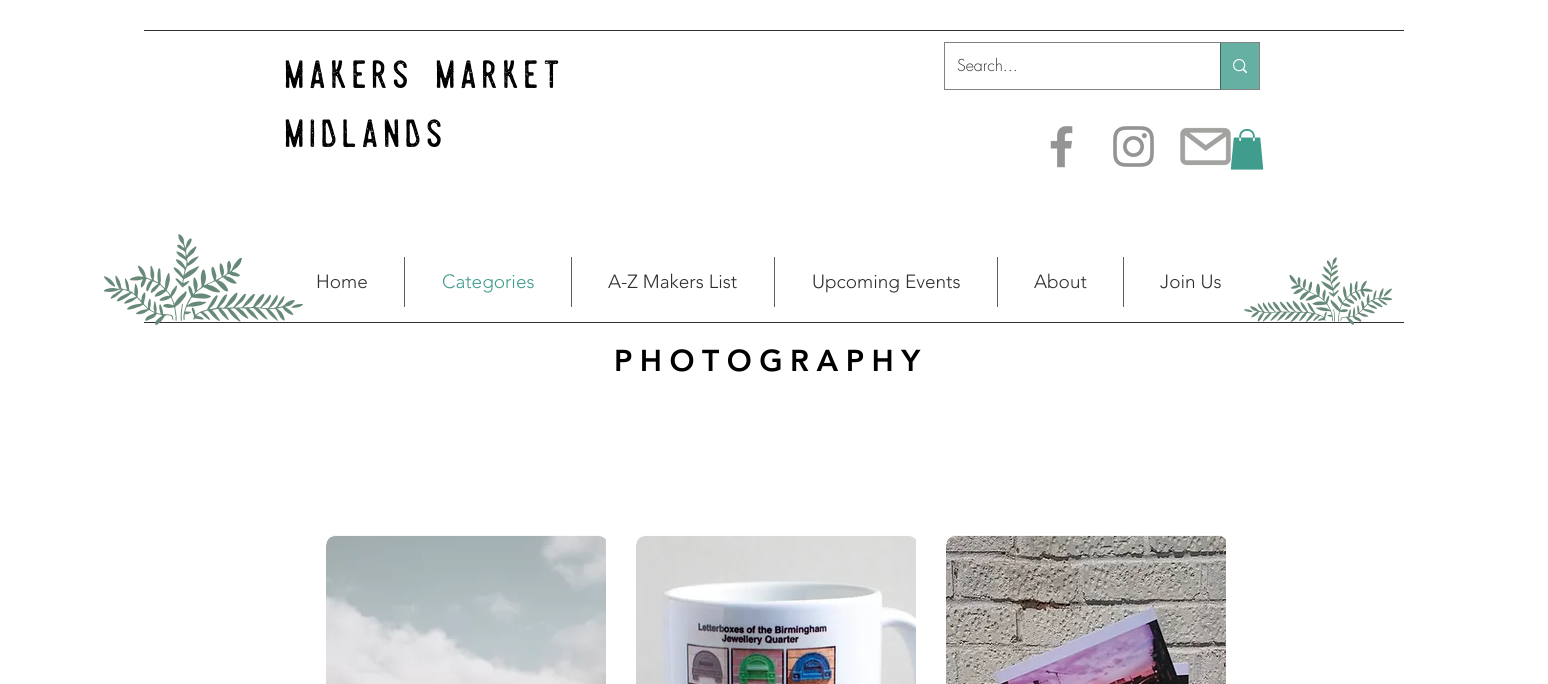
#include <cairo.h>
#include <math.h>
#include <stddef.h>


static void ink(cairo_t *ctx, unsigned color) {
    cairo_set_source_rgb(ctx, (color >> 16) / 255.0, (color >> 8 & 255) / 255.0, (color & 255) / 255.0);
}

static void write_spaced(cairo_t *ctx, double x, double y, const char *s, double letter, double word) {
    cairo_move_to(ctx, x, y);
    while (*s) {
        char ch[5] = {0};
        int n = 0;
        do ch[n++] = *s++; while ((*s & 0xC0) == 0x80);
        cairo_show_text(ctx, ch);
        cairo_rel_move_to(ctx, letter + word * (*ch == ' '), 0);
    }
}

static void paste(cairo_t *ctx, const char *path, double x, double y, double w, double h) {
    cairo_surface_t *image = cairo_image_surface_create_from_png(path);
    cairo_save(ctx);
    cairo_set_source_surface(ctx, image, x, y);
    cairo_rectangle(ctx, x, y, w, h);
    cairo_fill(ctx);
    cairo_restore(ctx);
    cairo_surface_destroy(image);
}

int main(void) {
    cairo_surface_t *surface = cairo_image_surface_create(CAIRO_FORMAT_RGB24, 1548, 684);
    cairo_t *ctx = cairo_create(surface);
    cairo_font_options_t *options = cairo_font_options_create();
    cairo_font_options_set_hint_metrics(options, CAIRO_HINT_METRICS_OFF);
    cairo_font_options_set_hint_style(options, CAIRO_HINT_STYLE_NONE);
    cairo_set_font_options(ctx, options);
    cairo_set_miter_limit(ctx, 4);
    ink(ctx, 0xFFFFFF);
    cairo_paint(ctx);
    ink(ctx, 0x2F2F30);
    cairo_rectangle(ctx, 144, 30, 1260, 1);
    cairo_fill(ctx);
    cairo_select_font_face(ctx, "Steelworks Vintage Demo", CAIRO_FONT_SLANT_NORMAL, CAIRO_FONT_WEIGHT_NORMAL);
    cairo_set_font_size(ctx, 44);
    ink(ctx, 0x000000);
    write_spaced(ctx, 284, 88, "makers market", 4.4, 0);
    write_spaced(ctx, 284, 147, "midlands", 4.4, 0);
    cairo_rectangle(ctx, 944.5, 42.5, 315, 47);
    ink(ctx, 0x828283);
    cairo_set_line_width(ctx, 1);
    cairo_stroke(ctx);
    cairo_select_font_face(ctx, "futura Light", CAIRO_FONT_SLANT_NORMAL, CAIRO_FONT_WEIGHT_NORMAL);
    cairo_set_font_size(ctx, 16);
    ink(ctx, 0x2F2F30);
    cairo_move_to(ctx, 957, 71);
    cairo_show_text(ctx, "Search...");
    ink(ctx, 0x66B0A3);
    cairo_rectangle(ctx, 1221, 43, 38, 46);
    cairo_fill(ctx);
    ink(ctx, 0x45635E);
    cairo_rectangle(ctx, 1220, 43, 1, 46);
    cairo_fill(ctx);
    paste(ctx, "media/1.png", 1233, 59, 14, 14);
    paste(ctx, "media/2.png", 1050, 126, 23, 42);
    paste(ctx, "media/3.png", 1113, 126, 41, 41);
    paste(ctx, "media/4.png", 1180, 127, 51, 39);
    paste(ctx, "media/5.png", 1230, 129, 34, 41);
    ink(ctx, 0x2F2F30);
    cairo_rectangle(ctx, 144, 322, 1260, 1);
    cairo_fill(ctx);
    paste(ctx, "media/6.png", 104, 234, 199, 91);
    cairo_select_font_face(ctx, "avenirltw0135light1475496 Light", CAIRO_FONT_SLANT_NORMAL, CAIRO_FONT_WEIGHT_NORMAL);
    cairo_set_font_size(ctx, 19);
    cairo_move_to(ctx, 316, 288);
    cairo_show_text(ctx, "Home");
    ink(ctx, 0x5F5E61);
    cairo_rectangle(ctx, 404, 257, 1, 50);
    cairo_fill(ctx);
    ink(ctx, 0x409C8C);
    cairo_move_to(ctx, 442, 288);
    cairo_show_text(ctx, "Categories");
    ink(ctx, 0x5F5E61);
    cairo_rectangle(ctx, 571, 257, 1, 50);
    cairo_fill(ctx);
    ink(ctx, 0x2F2F30);
    cairo_move_to(ctx, 608, 288);
    cairo_show_text(ctx, "A-Z Makers List");
    ink(ctx, 0x5F5E61);
    cairo_rectangle(ctx, 774, 257, 1, 50);
    cairo_fill(ctx);
    ink(ctx, 0x2F2F30);
    cairo_move_to(ctx, 812, 288);
    cairo_show_text(ctx, "Upcoming Events");
    ink(ctx, 0x5F5E61);
    cairo_rectangle(ctx, 997, 257, 1, 50);
    cairo_fill(ctx);
    ink(ctx, 0x2F2F30);
    cairo_move_to(ctx, 1034, 288);
    cairo_show_text(ctx, "About");
    ink(ctx, 0x5F5E61);
    cairo_rectangle(ctx, 1123, 257, 1, 50);
    cairo_fill(ctx);
    ink(ctx, 0x2F2F30);
    cairo_move_to(ctx, 1160, 288);
    cairo_show_text(ctx, "Join Us");
    paste(ctx, "media/7.png", 1244, 257, 148, 68);
    cairo_select_font_face(ctx, "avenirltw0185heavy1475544 Black", CAIRO_FONT_SLANT_NORMAL, CAIRO_FONT_WEIGHT_NORMAL);
    cairo_set_font_size(ctx, 30);
    ink(ctx, 0x000000);
    write_spaced(ctx, 614, 371, "PHOTOGRAPHY", 7.5, 0);
    paste(ctx, "media/8.png", 326, 535, 280, 149);
    cairo_save(ctx);
    cairo_rectangle(ctx, 326, 535, 280, 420);
    cairo_clip(ctx);
    cairo_set_source_rgba(ctx, 1, 1, 1, 0.92);
    cairo_new_path(ctx);
    cairo_move_to(ctx, 336, 536);
    cairo_curve_to(ctx, 330, 536, 326, 540, 326, 546);
    cairo_line_to(ctx, 326, 545);
    cairo_curve_to(ctx, 326, 539, 330, 535, 336, 535);
    cairo_line_to(ctx, 598, 535);
    cairo_curve_to(ctx, 604, 535, 608, 539, 608, 545);
    cairo_line_to(ctx, 608, 546);
    cairo_curve_to(ctx, 608, 540, 604, 536, 598, 536);
    cairo_close_path(ctx);
    cairo_fill(ctx);
    cairo_restore(ctx);
    paste(ctx, "media/9.png", 636, 535, 280, 149);
    cairo_save(ctx);
    cairo_rectangle(ctx, 636, 535, 280, 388);
    cairo_clip(ctx);
    cairo_set_source_rgba(ctx, 1, 1, 1, 0.92);
    cairo_new_path(ctx);
    cairo_move_to(ctx, 646, 536);
    cairo_curve_to(ctx, 640, 536, 636, 540, 636, 546);
    cairo_line_to(ctx, 636, 545);
    cairo_curve_to(ctx, 636, 539, 640, 535, 646, 535);
    cairo_line_to(ctx, 908, 535);
    cairo_curve_to(ctx, 914, 535, 918, 539, 918, 545);
    cairo_line_to(ctx, 918, 546);
    cairo_curve_to(ctx, 918, 540, 914, 536, 908, 536);
    cairo_close_path(ctx);
    cairo_fill(ctx);
    cairo_restore(ctx);
    paste(ctx, "media/10.png", 946, 535, 280, 149);
    cairo_save(ctx);
    cairo_rectangle(ctx, 946, 535, 280, 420);
    cairo_clip(ctx);
    cairo_set_source_rgba(ctx, 1, 1, 1, 0.92);
    cairo_new_path(ctx);
    cairo_move_to(ctx, 956, 536);
    cairo_curve_to(ctx, 950, 536, 946, 540, 946, 546);
    cairo_line_to(ctx, 946, 545);
    cairo_curve_to(ctx, 946, 539, 950, 535, 956, 535);
    cairo_line_to(ctx, 1218, 535);
    cairo_curve_to(ctx, 1224, 535, 1228, 539, 1228, 545);
    cairo_line_to(ctx, 1228, 546);
    cairo_curve_to(ctx, 1228, 540, 1224, 536, 1218, 536);
    cairo_close_path(ctx);
    cairo_fill(ctx);
    cairo_restore(ctx);
    cairo_surface_write_to_png(surface, "image.png");
    cairo_font_options_destroy(options);
    cairo_destroy(ctx);
    cairo_surface_destroy(surface);
    return 0;
}
